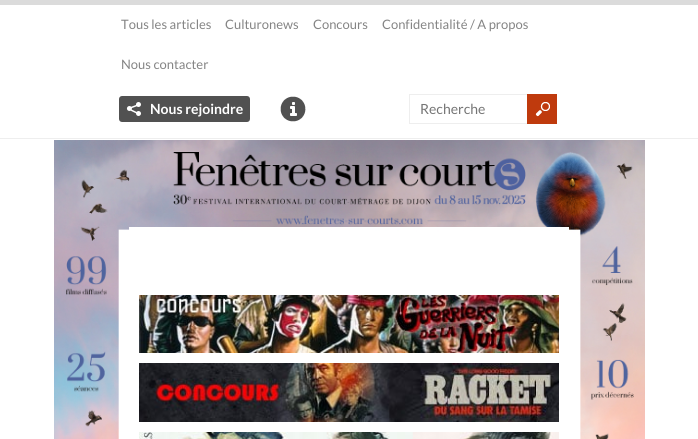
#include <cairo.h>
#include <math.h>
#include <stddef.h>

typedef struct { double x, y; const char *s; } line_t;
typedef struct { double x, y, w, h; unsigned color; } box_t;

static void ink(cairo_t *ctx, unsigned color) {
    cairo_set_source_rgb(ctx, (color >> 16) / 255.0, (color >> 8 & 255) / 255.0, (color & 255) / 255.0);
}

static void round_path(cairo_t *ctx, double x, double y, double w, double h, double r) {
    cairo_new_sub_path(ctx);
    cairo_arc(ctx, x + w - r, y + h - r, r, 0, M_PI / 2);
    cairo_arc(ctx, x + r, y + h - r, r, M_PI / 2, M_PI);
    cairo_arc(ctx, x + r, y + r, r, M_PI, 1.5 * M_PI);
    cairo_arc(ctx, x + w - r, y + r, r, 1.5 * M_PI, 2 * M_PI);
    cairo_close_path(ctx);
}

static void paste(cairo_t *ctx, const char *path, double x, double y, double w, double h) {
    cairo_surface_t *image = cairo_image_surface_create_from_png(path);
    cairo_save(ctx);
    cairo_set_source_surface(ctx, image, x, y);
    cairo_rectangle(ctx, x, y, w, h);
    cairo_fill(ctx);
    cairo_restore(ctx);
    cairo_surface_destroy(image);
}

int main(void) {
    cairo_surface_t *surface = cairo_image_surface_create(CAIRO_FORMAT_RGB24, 698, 439);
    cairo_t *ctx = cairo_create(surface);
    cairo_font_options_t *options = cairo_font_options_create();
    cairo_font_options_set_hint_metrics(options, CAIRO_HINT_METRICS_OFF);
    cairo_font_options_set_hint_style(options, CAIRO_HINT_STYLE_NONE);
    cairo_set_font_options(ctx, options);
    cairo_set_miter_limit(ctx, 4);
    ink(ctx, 0xFFFFFF);
    cairo_paint(ctx);
    paste(ctx, "media/1.png", 54, 140, 591, 299);
    ink(ctx, 0xDBDBDB);
    cairo_rectangle(ctx, 0, 0, 698, 5);
    cairo_fill(ctx);
    ink(ctx, 0xEEEEEE);
    cairo_rectangle(ctx, 0, 138, 698, 1);
    cairo_fill(ctx);
    cairo_select_font_face(ctx, "Lato", CAIRO_FONT_SLANT_NORMAL, CAIRO_FONT_WEIGHT_NORMAL);
    cairo_set_font_size(ctx, 13);
    ink(ctx, 0x848484);
    {
        static const line_t items[] = {
            {121, 29, "Tous les articles"},
            {225, 29, "Culturonews"},
            {313, 29, "Concours"},
            {382, 29, "Confidentialité / A propos"},
            {121, 69, "Nous contacter"},
        };
        for (size_t i = 0; i < sizeof items / sizeof *items; i++) {
            cairo_move_to(ctx, items[i].x, items[i].y);
            cairo_show_text(ctx, items[i].s);
        }
    }
    ink(ctx, 0x515151);
    round_path(ctx, 119, 96, 131, 26, 3);
    cairo_fill(ctx);
    paste(ctx, "media/2.png", 126, 102, 15, 14);
    cairo_select_font_face(ctx, "Lato", CAIRO_FONT_SLANT_NORMAL, CAIRO_FONT_WEIGHT_BOLD);
    cairo_set_font_size(ctx, 14);
    ink(ctx, 0xFFFFFF);
    cairo_move_to(ctx, 150, 114);
    cairo_show_text(ctx, "Nous rejoindre");
    paste(ctx, "media/3.png", 280, 96, 26, 26);
    {
        static const box_t items[] = {
            {409, 94, 118, 1, 0xEEEEEE},
            {409, 123, 118, 1, 0xEEEEEE},
            {409, 94, 1, 30, 0xEEEEEE},
        };
        for (size_t i = 0; i < sizeof items / sizeof *items; i++) {
            ink(ctx, items[i].color);
            cairo_rectangle(ctx, items[i].x, items[i].y, items[i].w, items[i].h);
            cairo_fill(ctx);
        }
    }
    cairo_select_font_face(ctx, "Lato", CAIRO_FONT_SLANT_NORMAL, CAIRO_FONT_WEIGHT_NORMAL);
    ink(ctx, 0x757575);
    cairo_move_to(ctx, 420, 114);
    cairo_show_text(ctx, "Recherche");
    ink(ctx, 0xBF3A0D);
    cairo_rectangle(ctx, 527, 94, 30, 30);
    cairo_fill(ctx);
    paste(ctx, "media/4.png", 535, 102, 15, 15);
    ink(ctx, 0xFFFFFF);
    cairo_rectangle(ctx, 129, 227, 440, 3);
    cairo_fill(ctx);
    paste(ctx, "media/5.png", 139, 295, 420, 58);
    paste(ctx, "media/6.png", 139, 363, 420, 59);
    paste(ctx, "media/7.png", 139, 432, 420, 7);
    cairo_surface_write_to_png(surface, "image.png");
    cairo_font_options_destroy(options);
    cairo_destroy(ctx);
    cairo_surface_destroy(surface);
    return 0;
}
